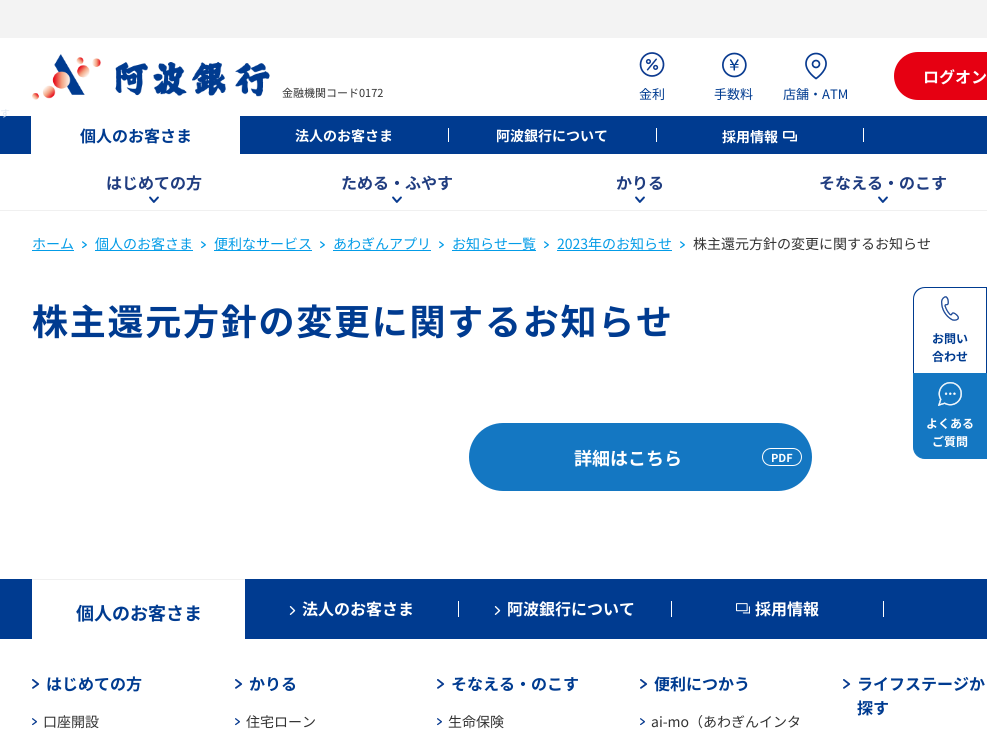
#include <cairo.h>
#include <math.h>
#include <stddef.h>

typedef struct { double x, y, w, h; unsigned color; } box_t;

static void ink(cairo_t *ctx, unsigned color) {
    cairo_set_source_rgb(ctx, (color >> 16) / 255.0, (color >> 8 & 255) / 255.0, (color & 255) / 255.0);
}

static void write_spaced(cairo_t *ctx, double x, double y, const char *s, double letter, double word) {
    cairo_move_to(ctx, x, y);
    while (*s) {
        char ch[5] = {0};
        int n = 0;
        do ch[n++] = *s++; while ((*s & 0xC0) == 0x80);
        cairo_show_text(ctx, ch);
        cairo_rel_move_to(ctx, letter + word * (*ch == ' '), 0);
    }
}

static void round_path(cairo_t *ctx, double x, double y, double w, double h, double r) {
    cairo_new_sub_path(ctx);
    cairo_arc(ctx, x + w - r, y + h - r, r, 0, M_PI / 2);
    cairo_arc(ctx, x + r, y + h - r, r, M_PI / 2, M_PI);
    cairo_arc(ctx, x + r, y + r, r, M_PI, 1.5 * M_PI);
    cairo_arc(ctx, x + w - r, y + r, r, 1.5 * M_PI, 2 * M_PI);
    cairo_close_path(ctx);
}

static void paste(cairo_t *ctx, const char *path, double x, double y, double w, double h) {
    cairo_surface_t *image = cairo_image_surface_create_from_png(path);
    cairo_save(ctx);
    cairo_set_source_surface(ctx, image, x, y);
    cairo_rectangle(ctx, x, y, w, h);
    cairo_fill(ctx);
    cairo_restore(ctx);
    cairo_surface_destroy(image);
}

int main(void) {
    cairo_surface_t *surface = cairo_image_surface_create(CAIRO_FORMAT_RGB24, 987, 742);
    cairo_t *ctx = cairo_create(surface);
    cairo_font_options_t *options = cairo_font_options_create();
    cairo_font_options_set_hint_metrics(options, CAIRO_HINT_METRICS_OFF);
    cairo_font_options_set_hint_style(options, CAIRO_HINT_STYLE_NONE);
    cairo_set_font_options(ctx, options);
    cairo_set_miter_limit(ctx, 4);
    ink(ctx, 0xFFFFFF);
    cairo_paint(ctx);
    ink(ctx, 0x003B90);
    cairo_rectangle(ctx, 0, 116, 987, 38);
    cairo_fill(ctx);
    cairo_select_font_face(ctx, "Noto Sans JP", CAIRO_FONT_SLANT_NORMAL, CAIRO_FONT_WEIGHT_NORMAL);
    cairo_set_font_size(ctx, 10);
    ink(ctx, 0xDFE7F1);
    cairo_move_to(ctx, 0, 117);
    cairo_show_text(ctx, "す");
    ink(ctx, 0xF3F3F3);
    cairo_rectangle(ctx, 0, 0, 987, 38);
    cairo_fill(ctx);
    paste(ctx, "media/1.png", 32, 54, 238, 46);
    cairo_set_font_size(ctx, 11);
    ink(ctx, 0x333333);
    cairo_move_to(ctx, 282, 97);
    cairo_show_text(ctx, "金融機関コード0172");
    ink(ctx, 0xE60012);
    round_path(ctx, 894, 52, 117, 48, 24);
    cairo_fill(ctx);
    cairo_select_font_face(ctx, "Noto Sans JP", CAIRO_FONT_SLANT_NORMAL, CAIRO_FONT_WEIGHT_BOLD);
    cairo_set_font_size(ctx, 16);
    ink(ctx, 0xFFFFFF);
    cairo_move_to(ctx, 923, 83);
    cairo_show_text(ctx, "ログオン");
    paste(ctx, "media/2.png", 639, 52, 26, 25);
    cairo_select_font_face(ctx, "Noto Sans JP", CAIRO_FONT_SLANT_NORMAL, CAIRO_FONT_WEIGHT_NORMAL);
    cairo_set_font_size(ctx, 13);
    ink(ctx, 0x003B90);
    cairo_move_to(ctx, 639, 99);
    cairo_show_text(ctx, "金利");
    paste(ctx, "media/3.png", 722, 52, 25, 26);
    cairo_move_to(ctx, 714, 99);
    cairo_show_text(ctx, "手数料");
    paste(ctx, "media/4.png", 805, 52, 22, 28);
    cairo_move_to(ctx, 783, 99);
    cairo_show_text(ctx, "店舗・ATM");
    ink(ctx, 0xFFFFFF);
    cairo_rectangle(ctx, 31, 116, 209, 38);
    cairo_fill(ctx);
    cairo_select_font_face(ctx, "Noto Sans JP", CAIRO_FONT_SLANT_NORMAL, CAIRO_FONT_WEIGHT_BOLD);
    cairo_set_font_size(ctx, 16);
    ink(ctx, 0x003B90);
    cairo_move_to(ctx, 80, 142);
    cairo_show_text(ctx, "個人のお客さま");
    cairo_set_font_size(ctx, 14);
    ink(ctx, 0xFFFFFF);
    cairo_move_to(ctx, 295, 141);
    cairo_show_text(ctx, "法人のお客さま");
    cairo_rectangle(ctx, 448, 128, 1, 14);
    cairo_fill(ctx);
    cairo_move_to(ctx, 496, 141);
    cairo_show_text(ctx, "阿波銀行について");
    cairo_rectangle(ctx, 656, 128, 1, 14);
    cairo_fill(ctx);
    cairo_move_to(ctx, 722, 142);
    cairo_show_text(ctx, "採用情報");
    paste(ctx, "media/5.png", 783, 131, 14, 11);
    cairo_rectangle(ctx, 863, 128, 1, 14);
    cairo_fill(ctx);
    cairo_set_font_size(ctx, 16);
    ink(ctx, 0x203D80);
    cairo_move_to(ctx, 106, 189);
    cairo_show_text(ctx, "はじめての方");
    paste(ctx, "media/6.png", 149, 196, 10, 7);
    cairo_move_to(ctx, 341, 189);
    cairo_show_text(ctx, "ためる・ふやす");
    paste(ctx, "media/6.png", 392, 196, 10, 7);
    cairo_move_to(ctx, 616, 189);
    cairo_show_text(ctx, "かりる");
    paste(ctx, "media/6.png", 635, 196, 10, 7);
    cairo_move_to(ctx, 819, 189);
    cairo_show_text(ctx, "そなえる・のこす");
    paste(ctx, "media/6.png", 878, 196, 10, 7);
    ink(ctx, 0xF0F0F0);
    cairo_rectangle(ctx, 0, 210, 987, 1);
    cairo_fill(ctx);
    cairo_select_font_face(ctx, "Noto Sans JP", CAIRO_FONT_SLANT_NORMAL, CAIRO_FONT_WEIGHT_NORMAL);
    cairo_set_font_size(ctx, 14);
    ink(ctx, 0x039CE7);
    cairo_move_to(ctx, 32, 249);
    cairo_show_text(ctx, "ホーム");
    cairo_rectangle(ctx, 32, 250, 42, 1);
    cairo_fill(ctx);
    paste(ctx, "media/7.png", 82, 241, 5, 8);
    cairo_rectangle(ctx, 95, 250, 98, 1);
    cairo_fill(ctx);
    cairo_move_to(ctx, 95, 249);
    cairo_show_text(ctx, "個人のお客さま");
    paste(ctx, "media/7.png", 201, 241, 5, 8);
    cairo_rectangle(ctx, 214, 250, 98, 1);
    cairo_fill(ctx);
    cairo_move_to(ctx, 214, 249);
    cairo_show_text(ctx, "便利なサービス");
    paste(ctx, "media/7.png", 320, 241, 5, 8);
    cairo_move_to(ctx, 333, 249);
    cairo_show_text(ctx, "あわぎんアプリ");
    cairo_rectangle(ctx, 333, 250, 98, 1);
    cairo_fill(ctx);
    paste(ctx, "media/7.png", 439, 241, 5, 8);
    cairo_rectangle(ctx, 452, 250, 84, 1);
    cairo_fill(ctx);
    cairo_move_to(ctx, 452, 249);
    cairo_show_text(ctx, "お知らせ一覧");
    paste(ctx, "media/7.png", 544, 241, 5, 8);
    cairo_rectangle(ctx, 557, 250, 115, 1);
    cairo_fill(ctx);
    cairo_move_to(ctx, 557, 249);
    cairo_show_text(ctx, "2023年のお知らせ");
    paste(ctx, "media/7.png", 680, 241, 5, 8);
    ink(ctx, 0x333333);
    cairo_move_to(ctx, 693, 249);
    cairo_show_text(ctx, "株主還元方針の変更に関するお知らせ");
    cairo_select_font_face(ctx, "Noto Sans JP", CAIRO_FONT_SLANT_NORMAL, CAIRO_FONT_WEIGHT_BOLD);
    cairo_set_font_size(ctx, 36);
    ink(ctx, 0x003B90);
    write_spaced(ctx, 32, 335, "株主還元方針の変更に関するお知らせ", 1.75, 0);
    ink(ctx, 0x1477C2);
    round_path(ctx, 469, 423, 343, 68, 34);
    cairo_fill(ctx);
    cairo_set_font_size(ctx, 18);
    ink(ctx, 0xFFFFFF);
    cairo_move_to(ctx, 574, 465);
    cairo_show_text(ctx, "詳細はこちら");
    round_path(ctx, 762.5, 448.5, 39, 17, 8.5);
    cairo_set_line_width(ctx, 1);
    cairo_stroke(ctx);
    cairo_set_font_size(ctx, 11);
    cairo_move_to(ctx, 771, 462);
    cairo_show_text(ctx, "PDF");
    ink(ctx, 0x003B90);
    cairo_set_fill_rule(ctx, CAIRO_FILL_RULE_EVEN_ODD);
    cairo_new_path(ctx);
    cairo_move_to(ctx, 925, 287);
    cairo_line_to(ctx, 987, 287);
    cairo_line_to(ctx, 987, 373);
    cairo_line_to(ctx, 913, 373);
    cairo_line_to(ctx, 913, 299);
    cairo_curve_to(ctx, 913, 292, 918, 287, 925, 287);
    cairo_close_path(ctx);
    cairo_move_to(ctx, 925, 288);
    cairo_line_to(ctx, 986, 288);
    cairo_line_to(ctx, 986, 373);
    cairo_line_to(ctx, 914, 373);
    cairo_line_to(ctx, 914, 299);
    cairo_curve_to(ctx, 914, 293, 919, 288, 925, 288);
    cairo_close_path(ctx);
    cairo_fill(ctx);
    paste(ctx, "media/8.png", 941, 296, 18, 25);
    cairo_set_font_size(ctx, 12);
    cairo_move_to(ctx, 932, 343);
    cairo_show_text(ctx, "お問い");
    cairo_move_to(ctx, 932, 361);
    cairo_show_text(ctx, "合わせ");
    ink(ctx, 0x1477C2);
    cairo_new_path(ctx);
    cairo_move_to(ctx, 913.5, 373.5);
    cairo_line_to(ctx, 986.5, 373.5);
    cairo_line_to(ctx, 986.5, 458.5);
    cairo_line_to(ctx, 925, 458.5);
    cairo_curve_to(ctx, 918.5, 458.5, 913.5, 453.5, 913.5, 447);
    cairo_close_path(ctx);
    cairo_fill_preserve(ctx);
    cairo_stroke(ctx);
    paste(ctx, "media/9.png", 938, 382, 24, 24);
    ink(ctx, 0xFFFFFF);
    cairo_move_to(ctx, 926, 428);
    cairo_show_text(ctx, "よくある");
    cairo_move_to(ctx, 932, 446);
    cairo_show_text(ctx, "ご質問");
    {
        static const box_t items[] = {
            {0, 579, 987, 60, 0x003B90},
            {32, 580, 213, 59, 0xFFFFFF},
            {32, 579, 213, 1, 0xF0F0F0},
        };
        for (size_t i = 0; i < sizeof items / sizeof *items; i++) {
            ink(ctx, items[i].color);
            cairo_rectangle(ctx, items[i].x, items[i].y, items[i].w, items[i].h);
            cairo_fill(ctx);
        }
    }
    cairo_set_font_size(ctx, 18);
    ink(ctx, 0x003B90);
    cairo_move_to(ctx, 76, 620);
    cairo_show_text(ctx, "個人のお客さま");
    paste(ctx, "media/10.png", 289, 606, 7, 9);
    cairo_set_font_size(ctx, 16);
    ink(ctx, 0xFFFFFF);
    cairo_move_to(ctx, 302, 615);
    cairo_show_text(ctx, "法人のお客さま");
    cairo_rectangle(ctx, 458, 601, 1, 16);
    cairo_fill(ctx);
    paste(ctx, "media/10.png", 494, 606, 7, 9);
    cairo_move_to(ctx, 507, 615);
    cairo_show_text(ctx, "阿波銀行について");
    cairo_rectangle(ctx, 671, 601, 1, 16);
    cairo_fill(ctx);
    paste(ctx, "media/11.png", 736, 603, 14, 11);
    cairo_move_to(ctx, 755, 615);
    cairo_show_text(ctx, "採用情報");
    cairo_rectangle(ctx, 883, 601, 1, 16);
    cairo_fill(ctx);
    paste(ctx, "media/12.png", 32, 679, 8, 10);
    ink(ctx, 0x003B90);
    cairo_move_to(ctx, 46, 690);
    cairo_show_text(ctx, "はじめての方");
    paste(ctx, "media/13.png", 32, 718, 5, 8);
    cairo_select_font_face(ctx, "Noto Sans JP", CAIRO_FONT_SLANT_NORMAL, CAIRO_FONT_WEIGHT_NORMAL);
    cairo_set_font_size(ctx, 14);
    ink(ctx, 0x333333);
    cairo_move_to(ctx, 43, 727);
    cairo_show_text(ctx, "口座開設");
    paste(ctx, "media/12.png", 235, 679, 8, 10);
    cairo_select_font_face(ctx, "Noto Sans JP", CAIRO_FONT_SLANT_NORMAL, CAIRO_FONT_WEIGHT_BOLD);
    cairo_set_font_size(ctx, 16);
    ink(ctx, 0x003B90);
    cairo_move_to(ctx, 249, 690);
    cairo_show_text(ctx, "かりる");
    paste(ctx, "media/13.png", 235, 718, 5, 8);
    cairo_select_font_face(ctx, "Noto Sans JP", CAIRO_FONT_SLANT_NORMAL, CAIRO_FONT_WEIGHT_NORMAL);
    cairo_set_font_size(ctx, 14);
    ink(ctx, 0x333333);
    cairo_move_to(ctx, 246, 727);
    cairo_show_text(ctx, "住宅ローン");
    paste(ctx, "media/12.png", 437, 679, 8, 10);
    cairo_select_font_face(ctx, "Noto Sans JP", CAIRO_FONT_SLANT_NORMAL, CAIRO_FONT_WEIGHT_BOLD);
    cairo_set_font_size(ctx, 16);
    ink(ctx, 0x003B90);
    cairo_move_to(ctx, 451, 690);
    cairo_show_text(ctx, "そなえる・のこす");
    paste(ctx, "media/13.png", 437, 718, 5, 8);
    cairo_select_font_face(ctx, "Noto Sans JP", CAIRO_FONT_SLANT_NORMAL, CAIRO_FONT_WEIGHT_NORMAL);
    cairo_set_font_size(ctx, 14);
    ink(ctx, 0x333333);
    cairo_move_to(ctx, 448, 727);
    cairo_show_text(ctx, "生命保険");
    paste(ctx, "media/12.png", 640, 679, 8, 10);
    cairo_select_font_face(ctx, "Noto Sans JP", CAIRO_FONT_SLANT_NORMAL, CAIRO_FONT_WEIGHT_BOLD);
    cairo_set_font_size(ctx, 16);
    ink(ctx, 0x003B90);
    cairo_move_to(ctx, 654, 690);
    cairo_show_text(ctx, "便利につかう");
    paste(ctx, "media/13.png", 640, 718, 5, 8);
    cairo_select_font_face(ctx, "Noto Sans JP", CAIRO_FONT_SLANT_NORMAL, CAIRO_FONT_WEIGHT_NORMAL);
    cairo_set_font_size(ctx, 14);
    ink(ctx, 0x333333);
    cairo_move_to(ctx, 651, 727);
    cairo_show_text(ctx, "ai-mo（あわぎんインタ");
    paste(ctx, "media/12.png", 843, 679, 8, 10);
    cairo_select_font_face(ctx, "Noto Sans JP", CAIRO_FONT_SLANT_NORMAL, CAIRO_FONT_WEIGHT_BOLD);
    cairo_set_font_size(ctx, 16);
    ink(ctx, 0x003B90);
    cairo_move_to(ctx, 857, 690);
    cairo_show_text(ctx, "ライフステージか");
    cairo_move_to(ctx, 857, 714);
    cairo_show_text(ctx, "探す");
    cairo_surface_write_to_png(surface, "image.png");
    cairo_font_options_destroy(options);
    cairo_destroy(ctx);
    cairo_surface_destroy(surface);
    return 0;
}
